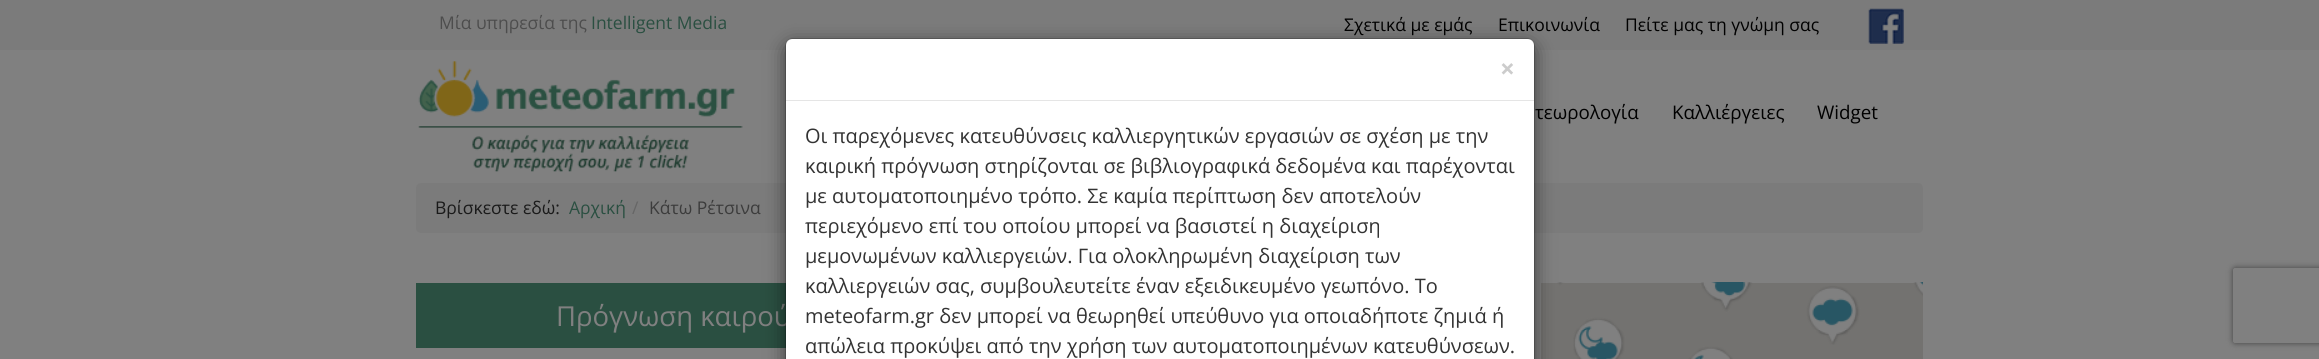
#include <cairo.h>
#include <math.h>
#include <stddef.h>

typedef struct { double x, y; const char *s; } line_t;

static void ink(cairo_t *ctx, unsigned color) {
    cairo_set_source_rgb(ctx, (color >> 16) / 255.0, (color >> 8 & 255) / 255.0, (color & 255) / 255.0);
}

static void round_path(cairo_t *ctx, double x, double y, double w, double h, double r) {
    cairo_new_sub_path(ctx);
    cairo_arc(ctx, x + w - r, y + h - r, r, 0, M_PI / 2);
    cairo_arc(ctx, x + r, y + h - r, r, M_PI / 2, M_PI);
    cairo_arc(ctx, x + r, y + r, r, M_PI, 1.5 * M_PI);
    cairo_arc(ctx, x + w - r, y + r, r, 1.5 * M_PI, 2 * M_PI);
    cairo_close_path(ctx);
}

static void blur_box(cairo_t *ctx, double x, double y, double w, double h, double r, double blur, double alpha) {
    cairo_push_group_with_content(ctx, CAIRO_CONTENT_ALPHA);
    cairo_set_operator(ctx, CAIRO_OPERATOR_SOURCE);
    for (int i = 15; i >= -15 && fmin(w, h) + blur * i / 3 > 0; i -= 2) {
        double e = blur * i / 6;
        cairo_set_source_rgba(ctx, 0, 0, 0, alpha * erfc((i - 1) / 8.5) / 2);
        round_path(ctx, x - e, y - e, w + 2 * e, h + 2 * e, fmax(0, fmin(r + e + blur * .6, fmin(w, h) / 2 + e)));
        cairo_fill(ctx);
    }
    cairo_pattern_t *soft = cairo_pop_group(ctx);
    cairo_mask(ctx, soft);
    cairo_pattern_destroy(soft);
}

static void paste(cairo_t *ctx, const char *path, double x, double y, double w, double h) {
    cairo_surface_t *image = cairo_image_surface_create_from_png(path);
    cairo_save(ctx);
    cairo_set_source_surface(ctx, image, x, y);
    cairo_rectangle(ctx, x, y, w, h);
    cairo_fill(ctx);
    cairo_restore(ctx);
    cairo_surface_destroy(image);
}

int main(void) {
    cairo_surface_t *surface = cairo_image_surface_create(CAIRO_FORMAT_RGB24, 2319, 359);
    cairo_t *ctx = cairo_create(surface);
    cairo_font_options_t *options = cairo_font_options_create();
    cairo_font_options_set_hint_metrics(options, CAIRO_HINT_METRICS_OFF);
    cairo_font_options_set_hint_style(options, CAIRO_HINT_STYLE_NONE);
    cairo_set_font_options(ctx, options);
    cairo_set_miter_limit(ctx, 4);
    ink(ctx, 0x808080);
    cairo_paint(ctx);
    ink(ctx, 0x7B7B7B);
    cairo_rectangle(ctx, 0, 0, 2319, 50);
    cairo_fill(ctx);
    cairo_select_font_face(ctx, "Open Sans", CAIRO_FONT_SLANT_NORMAL, CAIRO_FONT_WEIGHT_NORMAL);
    cairo_set_font_size(ctx, 17.5);
    ink(ctx, 0x4D4D4D);
    cairo_move_to(ctx, 439, 29);
    cairo_show_text(ctx, "Μία υπηρεσία της");
    ink(ctx, 0x2A4F41);
    cairo_move_to(ctx, 591, 29);
    cairo_show_text(ctx, "Intelligent Media");
    ink(ctx, 0x000000);
    {
        static const line_t items[] = {
            {1344, 31, "Σχετικά με εμάς"},
            {1498, 31, "Επικοινωνία"},
            {1625, 31, "Πείτε μας τη γνώμη σας"},
        };
        for (size_t i = 0; i < sizeof items / sizeof *items; i++) {
            cairo_move_to(ctx, items[i].x, items[i].y);
            cairo_show_text(ctx, items[i].s);
        }
    }
    paste(ctx, "media/1.png", 1868, 8, 36, 36);
    ink(ctx, 0x2A4F41);
    cairo_rectangle(ctx, 416, 283, 370, 65);
    cairo_fill(ctx);
    cairo_set_font_size(ctx, 27.5);
    ink(ctx, 0x808080);
    cairo_move_to(ctx, 556, 326);
    cairo_show_text(ctx, "Πρόγνωση καιρού");
    ink(ctx, 0x737270);
    cairo_rectangle(ctx, 1541, 283, 382, 76);
    cairo_fill(ctx);
    paste(ctx, "media/2.png", 1557, 282, 187, 48);
    ink(ctx, 0x7B7B7B);
    round_path(ctx, 416, 183, 1507, 50, 5);
    cairo_fill(ctx);
    ink(ctx, 0x000000);
    blur_box(ctx, 785, 44, 750, 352, 8, 9.5, 0.5);
    ink(ctx, 0xFFFFFF);
    cairo_new_path(ctx);
    cairo_move_to(ctx, 792, 39);
    cairo_line_to(ctx, 1528, 39);
    cairo_curve_to(ctx, 1531.5, 39, 1534, 41.5, 1534, 45);
    cairo_line_to(ctx, 1534, 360);
    cairo_line_to(ctx, 786, 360);
    cairo_line_to(ctx, 786, 45);
    cairo_curve_to(ctx, 786, 41.5, 788.5, 39, 792, 39);
    cairo_close_path(ctx);
    cairo_fill(ctx);
    round_path(ctx, 785.5, 38.5, 749, 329, 7.5);
    cairo_set_source_rgba(ctx, 0, 0, 0, 0.2);
    cairo_set_line_width(ctx, 1);
    cairo_stroke(ctx);
    ink(ctx, 0xE5E5E5);
    cairo_rectangle(ctx, 786, 100, 748, 1);
    cairo_fill(ctx);
    cairo_select_font_face(ctx, "Open Sans", CAIRO_FONT_SLANT_NORMAL, CAIRO_FONT_WEIGHT_BOLD);
    cairo_set_font_size(ctx, 26);
    ink(ctx, 0xCCCCCC);
    cairo_move_to(ctx, 1500, 78);
    cairo_show_text(ctx, "×");
    cairo_select_font_face(ctx, "Open Sans", CAIRO_FONT_SLANT_NORMAL, CAIRO_FONT_WEIGHT_NORMAL);
    cairo_set_font_size(ctx, 20);
    ink(ctx, 0x333333);
    {
        static const line_t items[] = {
            {805, 143, "Οι παρεχόμενες κατευθύνσεις καλλιεργητικών εργασιών σε σχέση με την"},
            {805, 173, "καιρική πρόγνωση στηρίζονται σε βιβλιογραφικά δεδομένα και παρέχονται"},
            {805, 203, "με αυτοματοποιημένο τρόπο. Σε καμία περίπτωση δεν αποτελούν"},
            {805, 233, "περιεχόμενο επί του οποίου μπορεί να βασιστεί η διαχείριση"},
            {805, 263, "μεμονωμένων καλλιεργειών. Για ολοκληρωμένη διαχείριση των"},
            {805, 293, "καλλιεργειών σας, συμβουλευτείτε έναν εξειδικευμένο γεωπόνο. Το"},
            {805, 323, "meteofarm.gr δεν μπορεί να θεωρηθεί υπεύθυνο για οποιαδήποτε ζημιά ή"},
            {805, 353, "απώλεια προκύψει από την χρήση των αυτοματοποιημένων κατευθύνσεων."},
        };
        for (size_t i = 0; i < sizeof items / sizeof *items; i++) {
            cairo_move_to(ctx, items[i].x, items[i].y);
            cairo_show_text(ctx, items[i].s);
        }
    }
    paste(ctx, "media/3.png", 1743, 282, 180, 48);
    paste(ctx, "media/4.png", 1573, 330, 160, 29);
    paste(ctx, "media/5.png", 1816, 330, 34, 15);
    paste(ctx, "media/6.png", 418, 61, 325, 111);
    cairo_set_font_size(ctx, 18.75);
    ink(ctx, 0x000000);
    {
        static const line_t items[] = {
            {1535, 119, "τεωρολογία"},
            {1672, 119, "Καλλιέργειες"},
            {1817, 119, "Widget"},
        };
        for (size_t i = 0; i < sizeof items / sizeof *items; i++) {
            cairo_move_to(ctx, items[i].x, items[i].y);
            cairo_show_text(ctx, items[i].s);
        }
    }
    cairo_set_font_size(ctx, 17.5);
    ink(ctx, 0x1A1A1A);
    cairo_move_to(ctx, 435, 214);
    cairo_show_text(ctx, "Βρίσκεστε εδώ:");
    ink(ctx, 0x2A4F41);
    cairo_move_to(ctx, 569, 214);
    cairo_show_text(ctx, "Αρχική");
    ink(ctx, 0x666666);
    cairo_move_to(ctx, 632, 214);
    cairo_show_text(ctx, "/");
    ink(ctx, 0x3C3C3C);
    cairo_move_to(ctx, 649, 214);
    cairo_show_text(ctx, "Κάτω Ρέτσινα");
    cairo_save(ctx);
    cairo_set_fill_rule(ctx, CAIRO_FILL_RULE_EVEN_ODD);
    cairo_new_path(ctx);
    cairo_move_to(ctx, 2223, 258);
    cairo_line_to(ctx, 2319, 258);
    cairo_line_to(ctx, 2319, 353);
    cairo_line_to(ctx, 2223, 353);
    cairo_close_path(ctx);
    cairo_move_to(ctx, 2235.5, 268);
    cairo_line_to(ctx, 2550.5, 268);
    cairo_curve_to(ctx, 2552, 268, 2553, 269, 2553, 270.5);
    cairo_line_to(ctx, 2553, 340.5);
    cairo_curve_to(ctx, 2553, 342, 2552, 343, 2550.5, 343);
    cairo_line_to(ctx, 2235.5, 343);
    cairo_curve_to(ctx, 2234, 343, 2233, 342, 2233, 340.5);
    cairo_line_to(ctx, 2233, 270.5);
    cairo_curve_to(ctx, 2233, 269, 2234, 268, 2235.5, 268);
    cairo_close_path(ctx);
    cairo_clip(ctx);
    ink(ctx, 0x404040);
    blur_box(ctx, 2233, 268, 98, 75, 2.5, 3, 1);
    cairo_restore(ctx);
    cairo_surface_write_to_png(surface, "image.png");
    cairo_font_options_destroy(options);
    cairo_destroy(ctx);
    cairo_surface_destroy(surface);
    return 0;
}
